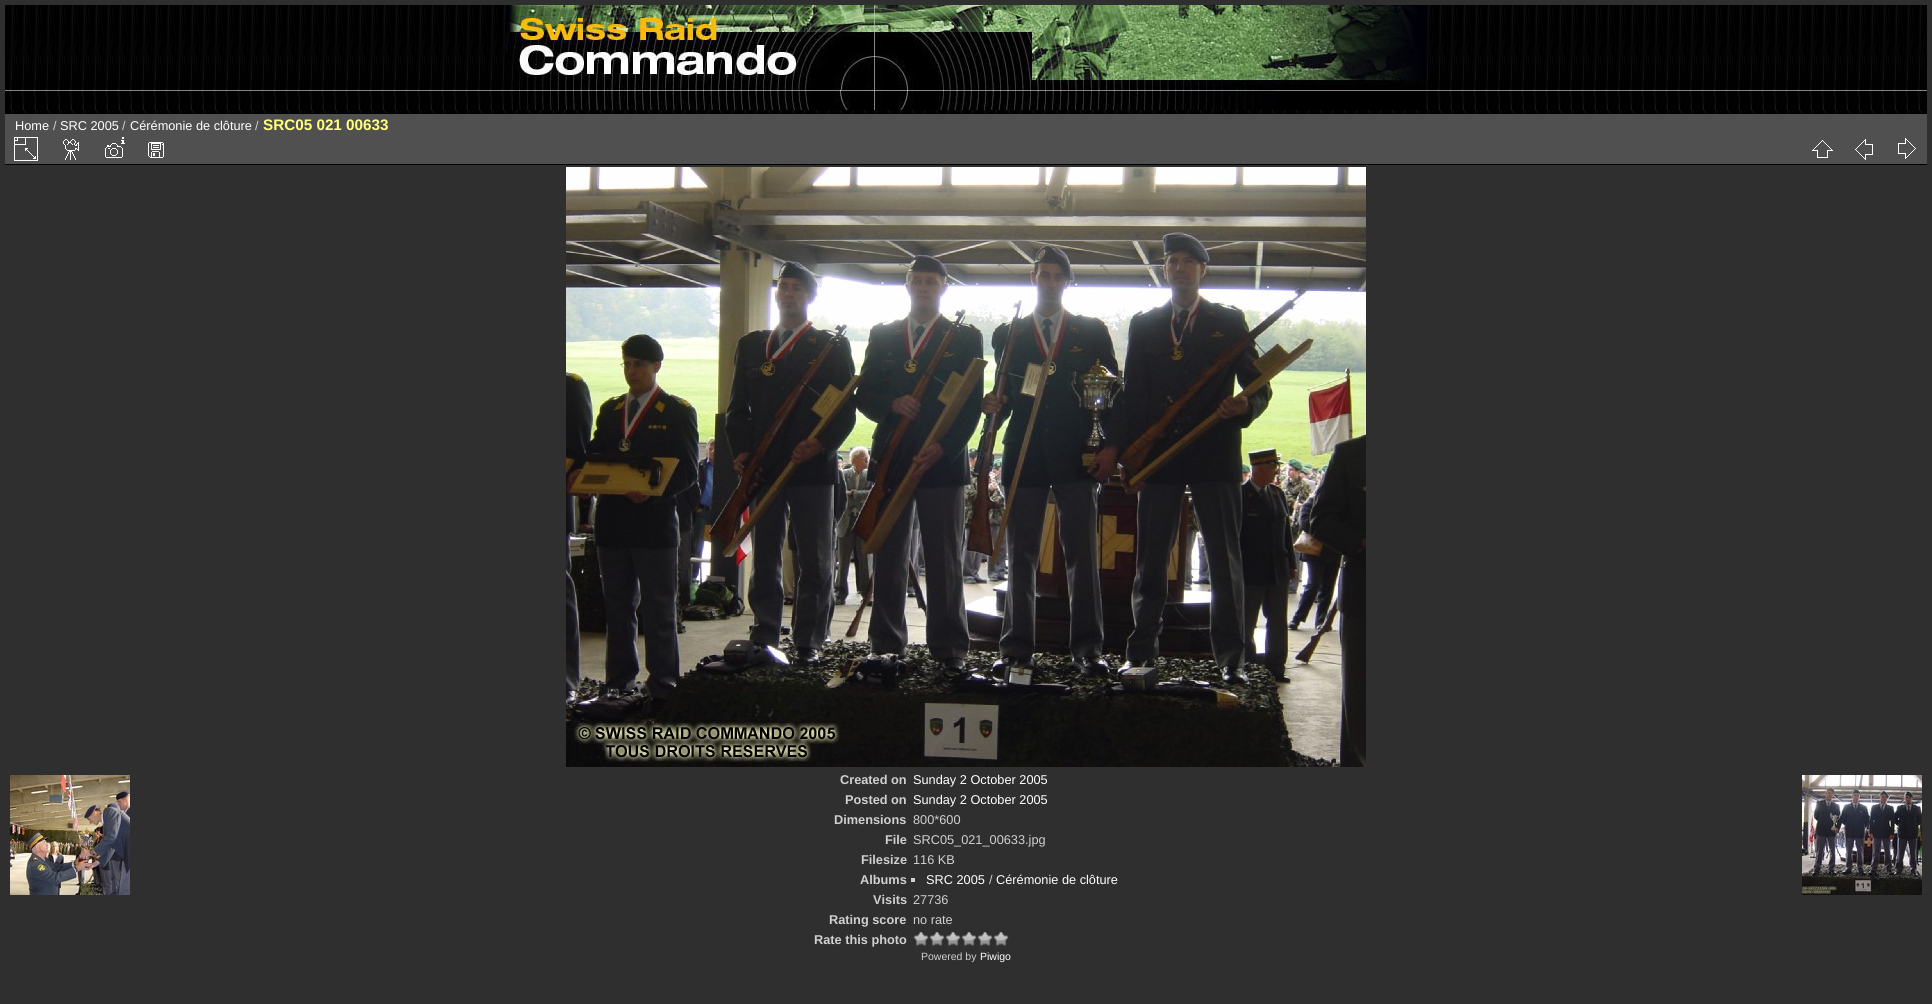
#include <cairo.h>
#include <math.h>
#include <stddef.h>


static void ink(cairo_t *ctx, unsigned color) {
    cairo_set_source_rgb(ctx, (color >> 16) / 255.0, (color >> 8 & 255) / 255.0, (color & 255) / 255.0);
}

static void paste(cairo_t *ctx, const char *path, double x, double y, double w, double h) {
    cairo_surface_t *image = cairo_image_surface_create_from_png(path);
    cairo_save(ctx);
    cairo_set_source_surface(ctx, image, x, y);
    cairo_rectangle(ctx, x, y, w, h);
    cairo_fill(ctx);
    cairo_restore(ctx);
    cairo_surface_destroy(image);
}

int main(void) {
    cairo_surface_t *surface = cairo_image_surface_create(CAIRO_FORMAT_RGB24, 1932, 1004);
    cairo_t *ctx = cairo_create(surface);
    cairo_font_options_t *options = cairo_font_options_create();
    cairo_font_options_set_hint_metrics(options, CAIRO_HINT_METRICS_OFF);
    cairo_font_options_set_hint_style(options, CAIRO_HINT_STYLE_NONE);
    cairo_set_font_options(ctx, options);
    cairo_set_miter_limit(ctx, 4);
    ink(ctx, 0x2F2F2F);
    cairo_paint(ctx);
    paste(ctx, "media/1.png", 5, 5, 1922, 108);
    paste(ctx, "media/2.png", 506, 5, 920, 105);
    ink(ctx, 0x505050);
    cairo_rectangle(ctx, 5, 114, 1922, 50);
    cairo_fill(ctx);
    ink(ctx, 0x000000);
    cairo_rectangle(ctx, 5, 164, 1922, 1);
    cairo_fill(ctx);
    paste(ctx, "media/3.png", 14, 137, 24, 24);
    paste(ctx, "media/4.png", 63, 139, 16, 21);
    paste(ctx, "media/5.png", 105, 137, 20, 21);
    paste(ctx, "media/6.png", 148, 142, 16, 16);
    paste(ctx, "media/7.png", 1812, 140, 21, 18);
    paste(ctx, "media/8.png", 1855, 139, 18, 21);
    paste(ctx, "media/9.png", 1898, 138, 18, 21);
    cairo_rectangle(ctx, 5, 113, 1922, 1);
    cairo_fill(ctx);
    cairo_select_font_face(ctx, "Liberation Sans", CAIRO_FONT_SLANT_NORMAL, CAIRO_FONT_WEIGHT_NORMAL);
    cairo_set_font_size(ctx, 12.75);
    ink(ctx, 0xFFFFFF);
    cairo_move_to(ctx, 15, 130);
    cairo_show_text(ctx, "Home");
    ink(ctx, 0xD0D0D0);
    cairo_move_to(ctx, 53, 130);
    cairo_show_text(ctx, "/");
    ink(ctx, 0xFFFFFF);
    cairo_move_to(ctx, 60, 130);
    cairo_show_text(ctx, "SRC 2005");
    ink(ctx, 0xD0D0D0);
    cairo_move_to(ctx, 122, 130);
    cairo_show_text(ctx, "/");
    ink(ctx, 0xFFFFFF);
    cairo_move_to(ctx, 130, 130);
    cairo_show_text(ctx, "Cérémonie de clôture");
    ink(ctx, 0xD0D0D0);
    cairo_move_to(ctx, 255, 130);
    cairo_show_text(ctx, "/");
    cairo_select_font_face(ctx, "Liberation Sans", CAIRO_FONT_SLANT_NORMAL, CAIRO_FONT_WEIGHT_BOLD);
    cairo_set_font_size(ctx, 15.25);
    ink(ctx, 0xFFFF80);
    cairo_move_to(ctx, 263, 130);
    cairo_show_text(ctx, "SRC05 021 00633");
    paste(ctx, "media/10.png", 566, 167, 800, 600);
    cairo_set_font_size(ctx, 12.75);
    ink(ctx, 0xD0D0D0);
    cairo_move_to(ctx, 840, 784);
    cairo_show_text(ctx, "Created on");
    cairo_select_font_face(ctx, "Liberation Sans", CAIRO_FONT_SLANT_NORMAL, CAIRO_FONT_WEIGHT_NORMAL);
    ink(ctx, 0xFFFFFF);
    cairo_move_to(ctx, 913, 784);
    cairo_show_text(ctx, "Sunday 2 October 2005");
    cairo_select_font_face(ctx, "Liberation Sans", CAIRO_FONT_SLANT_NORMAL, CAIRO_FONT_WEIGHT_BOLD);
    ink(ctx, 0xD0D0D0);
    cairo_move_to(ctx, 845, 804);
    cairo_show_text(ctx, "Posted on");
    cairo_select_font_face(ctx, "Liberation Sans", CAIRO_FONT_SLANT_NORMAL, CAIRO_FONT_WEIGHT_NORMAL);
    ink(ctx, 0xFFFFFF);
    cairo_move_to(ctx, 913, 804);
    cairo_show_text(ctx, "Sunday 2 October 2005");
    cairo_select_font_face(ctx, "Liberation Sans", CAIRO_FONT_SLANT_NORMAL, CAIRO_FONT_WEIGHT_BOLD);
    ink(ctx, 0xD0D0D0);
    cairo_move_to(ctx, 834, 824);
    cairo_show_text(ctx, "Dimensions");
    cairo_select_font_face(ctx, "Liberation Sans", CAIRO_FONT_SLANT_NORMAL, CAIRO_FONT_WEIGHT_NORMAL);
    cairo_move_to(ctx, 913, 824);
    cairo_show_text(ctx, "800*600");
    cairo_select_font_face(ctx, "Liberation Sans", CAIRO_FONT_SLANT_NORMAL, CAIRO_FONT_WEIGHT_BOLD);
    cairo_move_to(ctx, 885, 844);
    cairo_show_text(ctx, "File");
    cairo_select_font_face(ctx, "Liberation Sans", CAIRO_FONT_SLANT_NORMAL, CAIRO_FONT_WEIGHT_NORMAL);
    cairo_move_to(ctx, 913, 844);
    cairo_show_text(ctx, "SRC05_021_00633.jpg");
    cairo_select_font_face(ctx, "Liberation Sans", CAIRO_FONT_SLANT_NORMAL, CAIRO_FONT_WEIGHT_BOLD);
    cairo_move_to(ctx, 861, 864);
    cairo_show_text(ctx, "Filesize");
    cairo_select_font_face(ctx, "Liberation Sans", CAIRO_FONT_SLANT_NORMAL, CAIRO_FONT_WEIGHT_NORMAL);
    cairo_move_to(ctx, 913, 864);
    cairo_show_text(ctx, "116 KB");
    cairo_select_font_face(ctx, "Liberation Sans", CAIRO_FONT_SLANT_NORMAL, CAIRO_FONT_WEIGHT_BOLD);
    cairo_move_to(ctx, 860, 884);
    cairo_show_text(ctx, "Albums");
    cairo_rectangle(ctx, 911, 878, 4, 4);
    cairo_fill(ctx);
    cairo_select_font_face(ctx, "Liberation Sans", CAIRO_FONT_SLANT_NORMAL, CAIRO_FONT_WEIGHT_NORMAL);
    ink(ctx, 0xFFFFFF);
    cairo_move_to(ctx, 926, 884);
    cairo_show_text(ctx, "SRC 2005");
    ink(ctx, 0xD0D0D0);
    cairo_move_to(ctx, 989, 884);
    cairo_show_text(ctx, "/");
    ink(ctx, 0xFFFFFF);
    cairo_move_to(ctx, 996, 884);
    cairo_show_text(ctx, "Cérémonie de clôture");
    cairo_select_font_face(ctx, "Liberation Sans", CAIRO_FONT_SLANT_NORMAL, CAIRO_FONT_WEIGHT_BOLD);
    ink(ctx, 0xD0D0D0);
    cairo_move_to(ctx, 873, 904);
    cairo_show_text(ctx, "Visits");
    cairo_select_font_face(ctx, "Liberation Sans", CAIRO_FONT_SLANT_NORMAL, CAIRO_FONT_WEIGHT_NORMAL);
    cairo_move_to(ctx, 913, 904);
    cairo_show_text(ctx, "27736");
    cairo_select_font_face(ctx, "Liberation Sans", CAIRO_FONT_SLANT_NORMAL, CAIRO_FONT_WEIGHT_BOLD);
    cairo_move_to(ctx, 829, 924);
    cairo_show_text(ctx, "Rating score");
    cairo_select_font_face(ctx, "Liberation Sans", CAIRO_FONT_SLANT_NORMAL, CAIRO_FONT_WEIGHT_NORMAL);
    cairo_move_to(ctx, 913, 924);
    cairo_show_text(ctx, "no rate");
    cairo_select_font_face(ctx, "Liberation Sans", CAIRO_FONT_SLANT_NORMAL, CAIRO_FONT_WEIGHT_BOLD);
    cairo_move_to(ctx, 814, 944);
    cairo_show_text(ctx, "Rate this photo");
    paste(ctx, "media/11.png", 913, 932, 16, 14);
    paste(ctx, "media/11.png", 929, 932, 16, 14);
    paste(ctx, "media/11.png", 945, 932, 16, 14);
    paste(ctx, "media/11.png", 961, 932, 16, 14);
    paste(ctx, "media/11.png", 977, 932, 16, 14);
    paste(ctx, "media/11.png", 993, 932, 16, 14);
    paste(ctx, "media/12.png", 10, 775, 120, 120);
    paste(ctx, "media/13.png", 1802, 775, 120, 120);
    cairo_select_font_face(ctx, "Liberation Sans", CAIRO_FONT_SLANT_NORMAL, CAIRO_FONT_WEIGHT_NORMAL);
    cairo_set_font_size(ctx, 10.5);
    cairo_move_to(ctx, 921, 960);
    cairo_show_text(ctx, "Powered by");
    ink(ctx, 0xFFFFFF);
    cairo_move_to(ctx, 980, 960);
    cairo_show_text(ctx, "Piwigo");
    cairo_surface_write_to_png(surface, "image.png");
    cairo_font_options_destroy(options);
    cairo_destroy(ctx);
    cairo_surface_destroy(surface);
    return 0;
}
